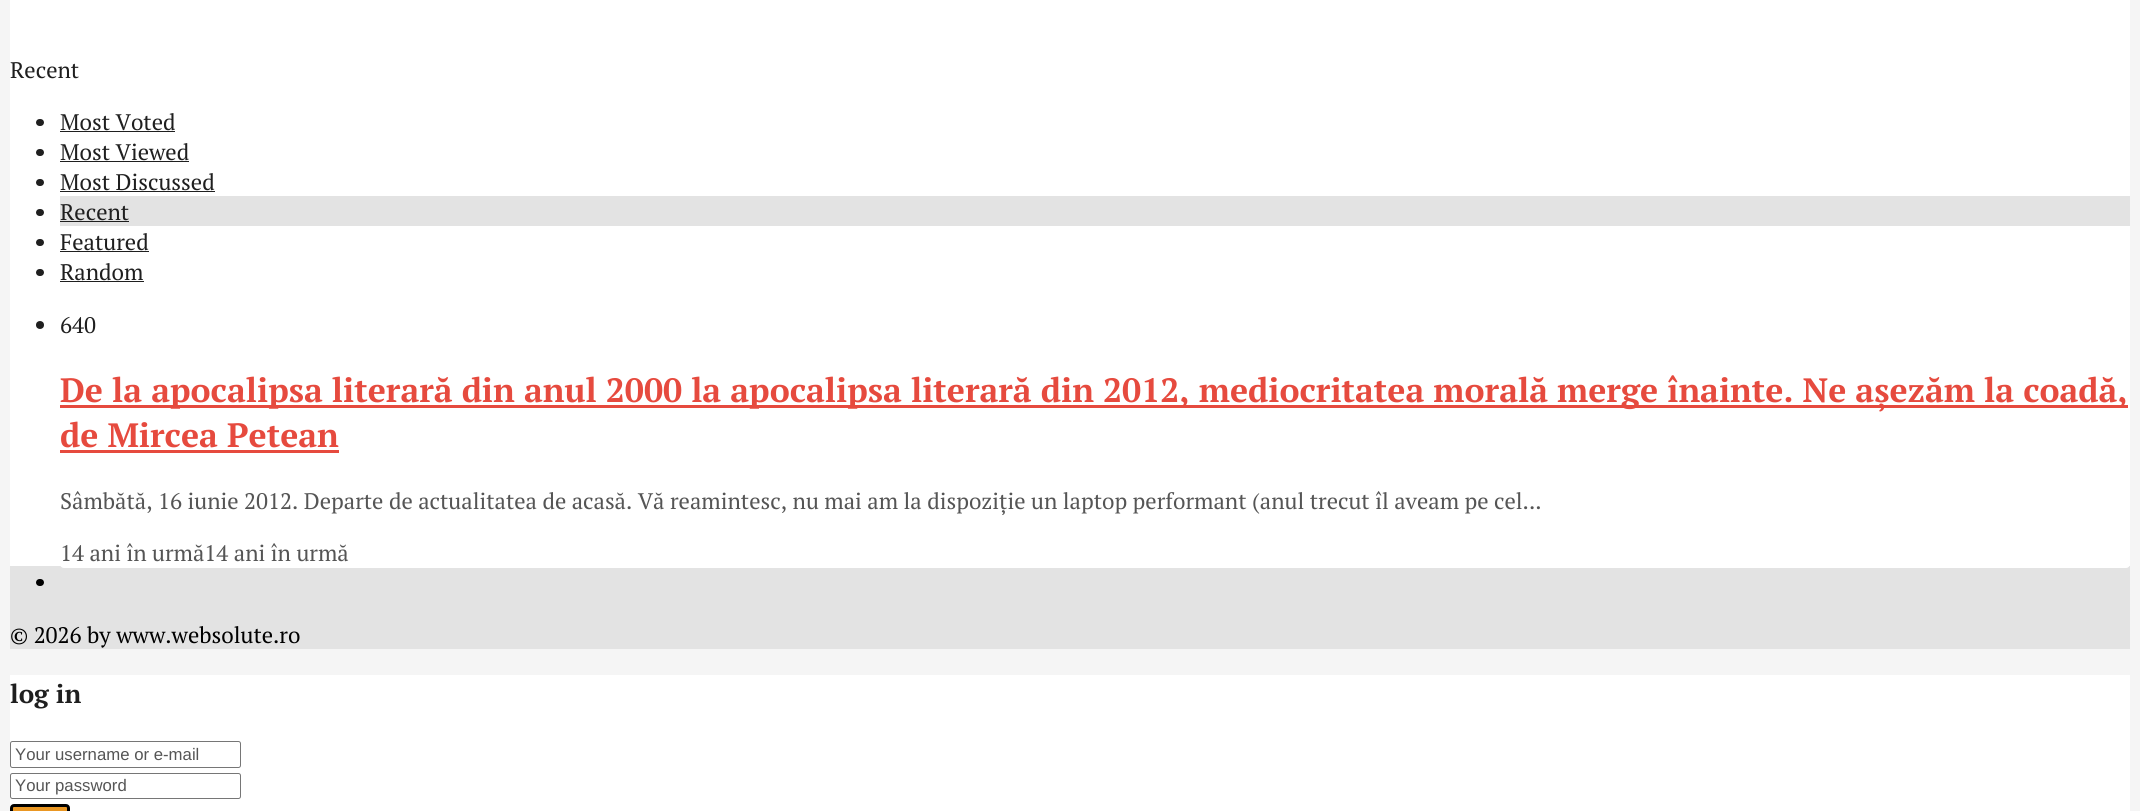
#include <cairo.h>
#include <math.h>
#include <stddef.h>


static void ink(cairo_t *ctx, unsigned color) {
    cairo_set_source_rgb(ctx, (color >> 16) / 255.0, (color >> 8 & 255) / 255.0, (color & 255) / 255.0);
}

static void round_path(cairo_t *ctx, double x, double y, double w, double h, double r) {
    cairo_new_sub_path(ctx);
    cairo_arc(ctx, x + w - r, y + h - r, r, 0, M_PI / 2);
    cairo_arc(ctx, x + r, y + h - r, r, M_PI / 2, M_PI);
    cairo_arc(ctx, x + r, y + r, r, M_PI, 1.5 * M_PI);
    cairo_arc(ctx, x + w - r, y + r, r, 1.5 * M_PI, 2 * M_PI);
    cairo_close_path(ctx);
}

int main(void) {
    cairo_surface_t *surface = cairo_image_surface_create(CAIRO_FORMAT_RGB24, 2140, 811);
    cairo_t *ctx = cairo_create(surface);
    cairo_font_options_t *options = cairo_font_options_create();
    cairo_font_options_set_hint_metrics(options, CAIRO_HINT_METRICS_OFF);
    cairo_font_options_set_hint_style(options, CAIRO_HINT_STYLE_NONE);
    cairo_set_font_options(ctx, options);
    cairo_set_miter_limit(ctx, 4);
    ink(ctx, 0xF5F5F5);
    cairo_paint(ctx);
    ink(ctx, 0xFFFFFF);
    cairo_rectangle(ctx, 10, 0, 2120, 566);
    cairo_fill(ctx);
    cairo_select_font_face(ctx, "PT Serif", CAIRO_FONT_SLANT_NORMAL, CAIRO_FONT_WEIGHT_NORMAL);
    cairo_set_font_size(ctx, 22.5);
    ink(ctx, 0x1F1F1F);
    cairo_move_to(ctx, 10, 78);
    cairo_show_text(ctx, "Recent");
    round_path(ctx, 36, 119, 8, 7, 3.5);
    cairo_fill(ctx);
    cairo_move_to(ctx, 60, 130);
    cairo_show_text(ctx, "Most Voted");
    cairo_rectangle(ctx, 60, 131, 115, 1);
    cairo_fill(ctx);
    round_path(ctx, 36, 149, 8, 7, 3.5);
    cairo_fill(ctx);
    cairo_move_to(ctx, 60, 160);
    cairo_show_text(ctx, "Most Viewed");
    cairo_rectangle(ctx, 60, 161, 129, 1);
    cairo_fill(ctx);
    round_path(ctx, 36, 179, 8, 7, 3.5);
    cairo_fill(ctx);
    cairo_move_to(ctx, 60, 190);
    cairo_show_text(ctx, "Most Discussed");
    cairo_rectangle(ctx, 60, 191, 155, 1);
    cairo_fill(ctx);
    ink(ctx, 0xE3E3E3);
    cairo_rectangle(ctx, 60, 196, 2070, 30);
    cairo_fill(ctx);
    ink(ctx, 0x1F1F1F);
    round_path(ctx, 36, 209, 8, 7, 3.5);
    cairo_fill(ctx);
    cairo_move_to(ctx, 60, 220);
    cairo_show_text(ctx, "Recent");
    cairo_rectangle(ctx, 60, 221, 69, 1);
    cairo_fill(ctx);
    round_path(ctx, 36, 239, 8, 7, 3.5);
    cairo_fill(ctx);
    cairo_move_to(ctx, 60, 250);
    cairo_show_text(ctx, "Featured");
    cairo_rectangle(ctx, 60, 251, 89, 1);
    cairo_fill(ctx);
    round_path(ctx, 36, 269, 8, 7, 3.5);
    cairo_fill(ctx);
    cairo_move_to(ctx, 60, 280);
    cairo_show_text(ctx, "Random");
    cairo_rectangle(ctx, 60, 281, 84, 1);
    cairo_fill(ctx);
    cairo_arc(ctx, 40, 325, 4, 0, 2 * M_PI);
    cairo_fill(ctx);
    ink(ctx, 0xE3E3E3);
    cairo_rectangle(ctx, 10, 566, 2120, 83);
    cairo_fill(ctx);
    ink(ctx, 0xFFFFFF);
    round_path(ctx, 60, 309, 2070, 259, 4);
    cairo_fill(ctx);
    ink(ctx, 0x1F1F1F);
    cairo_move_to(ctx, 60, 333);
    cairo_show_text(ctx, "640");
    ink(ctx, 0xE64A3E);
    cairo_rectangle(ctx, 60, 405, 2068, 3);
    cairo_fill(ctx);
    cairo_select_font_face(ctx, "PT Serif", CAIRO_FONT_SLANT_NORMAL, CAIRO_FONT_WEIGHT_BOLD);
    cairo_set_font_size(ctx, 33.75);
    cairo_move_to(ctx, 60, 402);
    cairo_show_text(ctx, "De la apocalipsa literară din anul 2000 la apocalipsa literară din 2012, mediocritatea morală merge înainte. Ne așezăm la coadă,");
    cairo_move_to(ctx, 60, 447);
    cairo_show_text(ctx, "de Mircea Petean");
    cairo_rectangle(ctx, 60, 450, 279, 3);
    cairo_fill(ctx);
    cairo_select_font_face(ctx, "PT Serif", CAIRO_FONT_SLANT_NORMAL, CAIRO_FONT_WEIGHT_NORMAL);
    cairo_set_font_size(ctx, 22.5);
    ink(ctx, 0x555555);
    cairo_move_to(ctx, 60, 509);
    cairo_show_text(ctx, "Sâmbătă, 16 iunie 2012. Departe de actualitatea de acasă. Vă reamintesc, nu mai am la dispoziție un laptop performant (anul trecut îl aveam pe cel...");
    cairo_move_to(ctx, 60, 561);
    cairo_show_text(ctx, "14 ani în urmă14 ani în urmă");
    ink(ctx, 0x000000);
    round_path(ctx, 36, 579, 8, 7, 3.5);
    cairo_fill(ctx);
    cairo_move_to(ctx, 10, 643);
    cairo_show_text(ctx, "© 2026 by www.websolute.ro");
    ink(ctx, 0xFFFFFF);
    cairo_rectangle(ctx, 10, 675, 2120, 136);
    cairo_fill(ctx);
    cairo_select_font_face(ctx, "PT Serif", CAIRO_FONT_SLANT_NORMAL, CAIRO_FONT_WEIGHT_BOLD);
    cairo_set_font_size(ctx, 26);
    ink(ctx, 0x1F1F1F);
    cairo_move_to(ctx, 10, 703);
    cairo_show_text(ctx, "log in");
    round_path(ctx, 10.5, 741.5, 230, 26, 2);
    ink(ctx, 0x767676);
    cairo_set_line_width(ctx, 1);
    cairo_stroke(ctx);
    cairo_select_font_face(ctx, "Liberation Sans", CAIRO_FONT_SLANT_NORMAL, CAIRO_FONT_WEIGHT_NORMAL);
    cairo_set_font_size(ctx, 16.75);
    ink(ctx, 0x555555);
    cairo_move_to(ctx, 15, 760);
    cairo_show_text(ctx, "Your username or e-mail");
    round_path(ctx, 10.5, 773.5, 230, 25, 2);
    ink(ctx, 0x767676);
    cairo_stroke(ctx);
    ink(ctx, 0x555555);
    cairo_move_to(ctx, 15, 791);
    cairo_show_text(ctx, "Your password");
    ink(ctx, 0xEA9723);
    round_path(ctx, 11.5, 805.5, 57, 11, 2.5);
    cairo_fill_preserve(ctx);
    ink(ctx, 0x000000);
    cairo_set_line_width(ctx, 3);
    cairo_stroke(ctx);
    cairo_surface_write_to_png(surface, "image.png");
    cairo_font_options_destroy(options);
    cairo_destroy(ctx);
    cairo_surface_destroy(surface);
    return 0;
}
